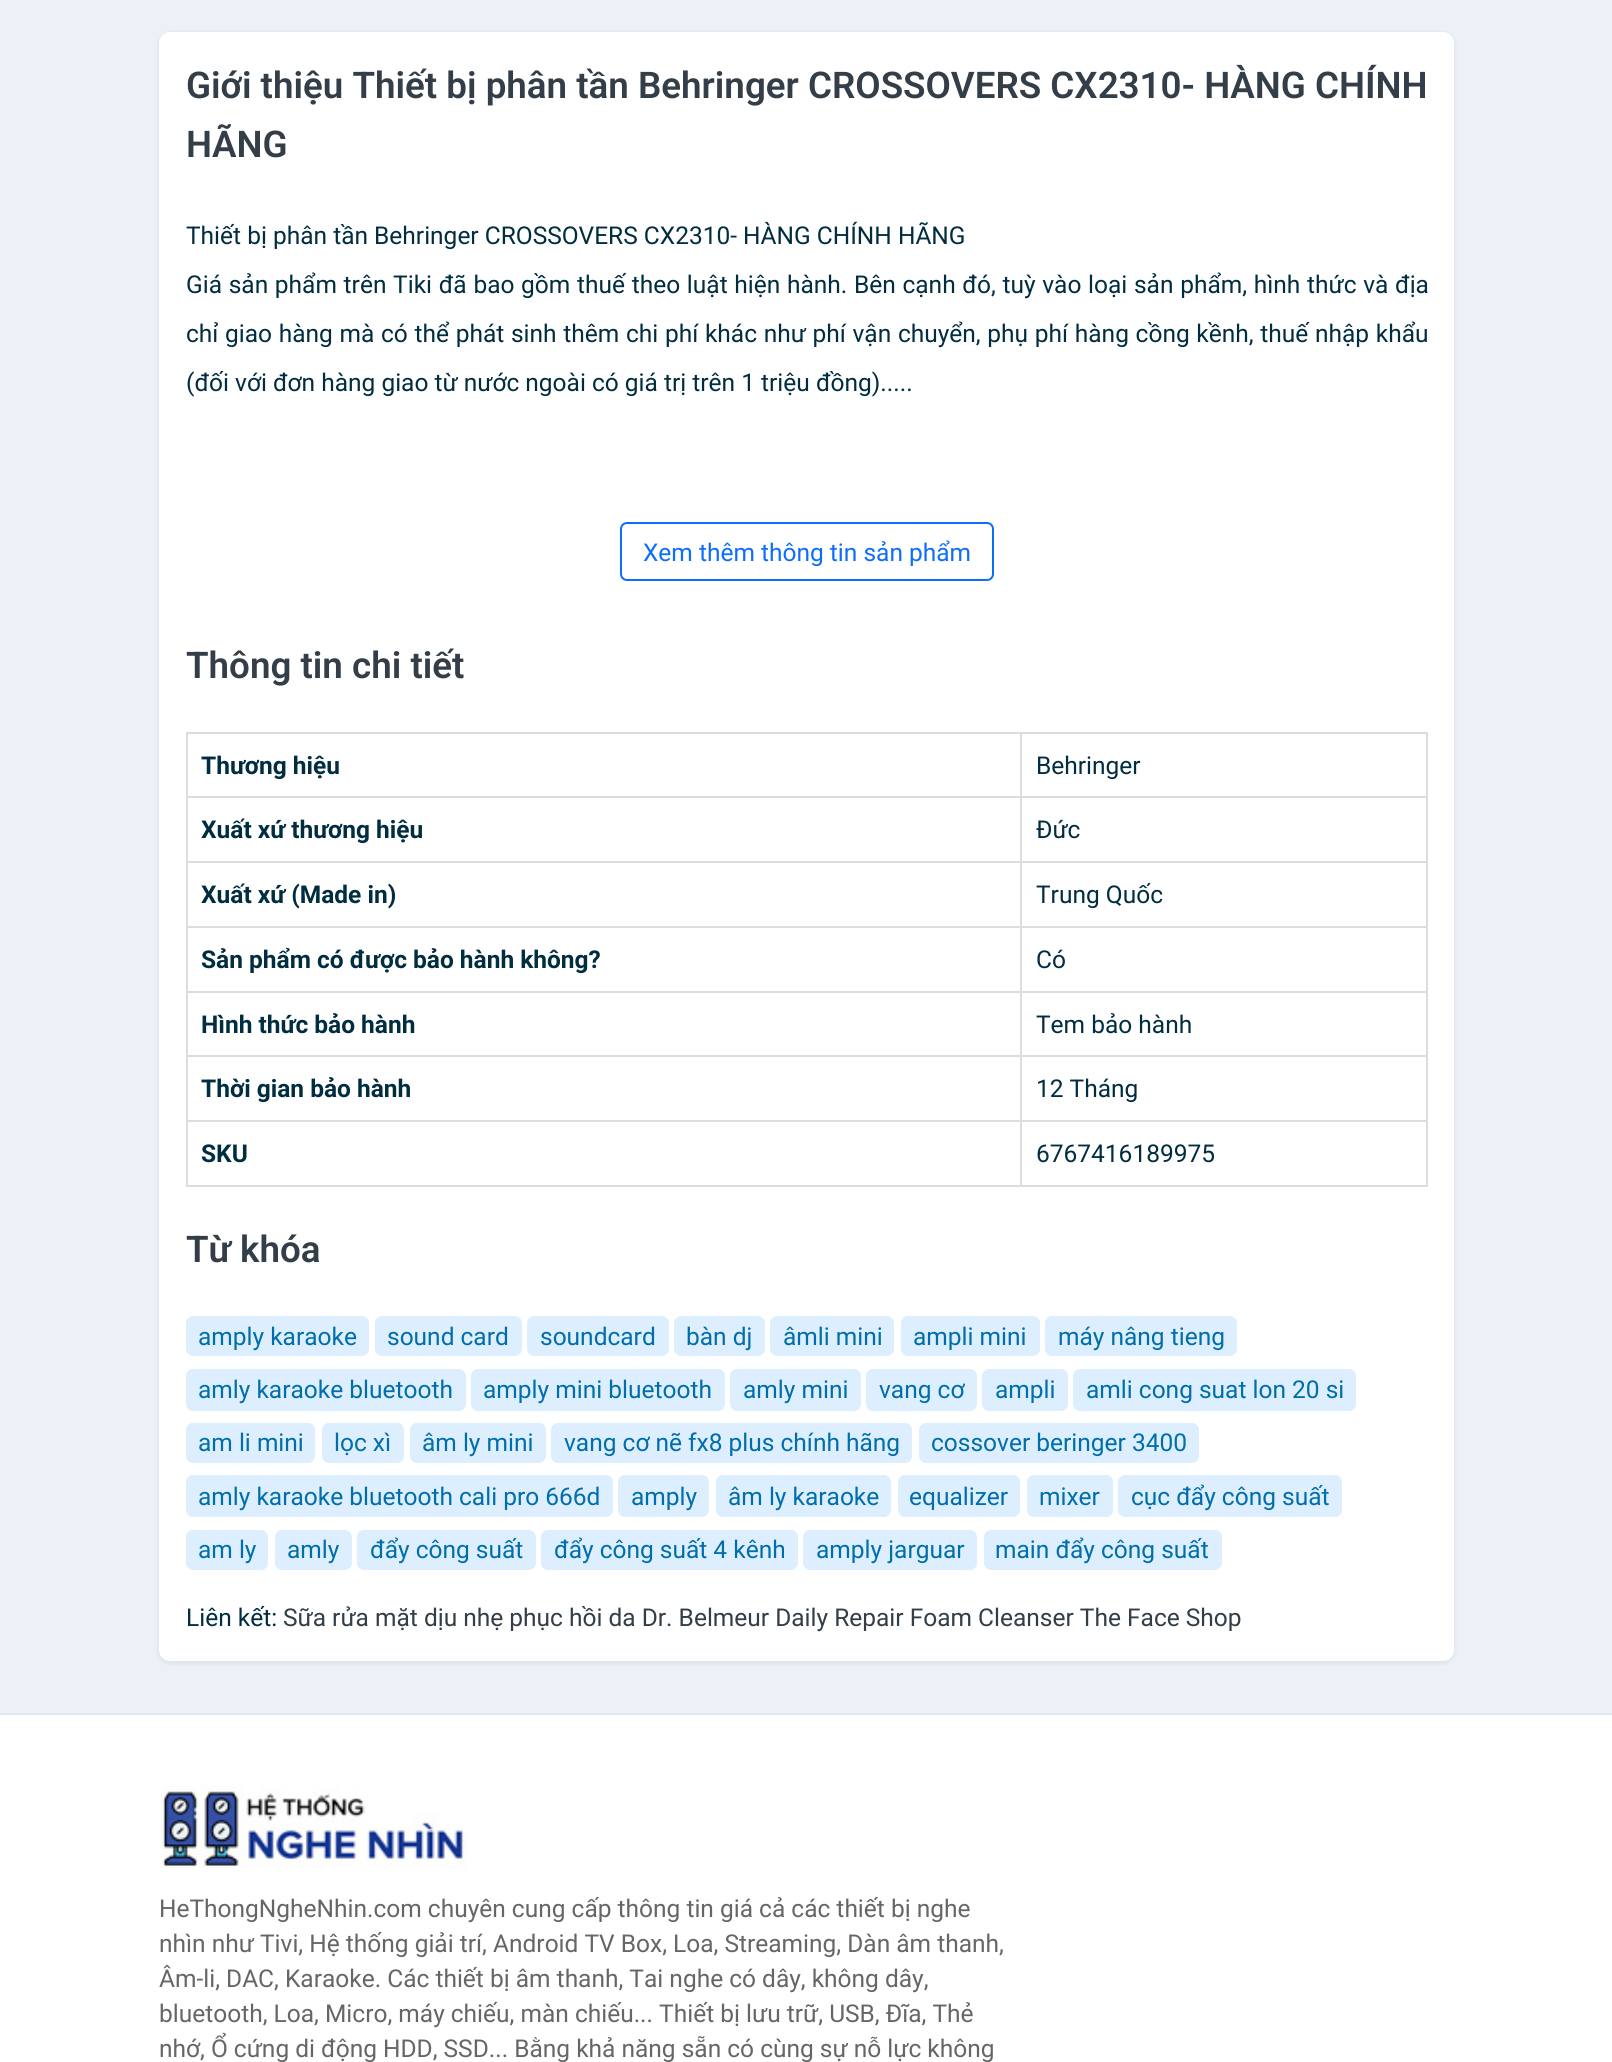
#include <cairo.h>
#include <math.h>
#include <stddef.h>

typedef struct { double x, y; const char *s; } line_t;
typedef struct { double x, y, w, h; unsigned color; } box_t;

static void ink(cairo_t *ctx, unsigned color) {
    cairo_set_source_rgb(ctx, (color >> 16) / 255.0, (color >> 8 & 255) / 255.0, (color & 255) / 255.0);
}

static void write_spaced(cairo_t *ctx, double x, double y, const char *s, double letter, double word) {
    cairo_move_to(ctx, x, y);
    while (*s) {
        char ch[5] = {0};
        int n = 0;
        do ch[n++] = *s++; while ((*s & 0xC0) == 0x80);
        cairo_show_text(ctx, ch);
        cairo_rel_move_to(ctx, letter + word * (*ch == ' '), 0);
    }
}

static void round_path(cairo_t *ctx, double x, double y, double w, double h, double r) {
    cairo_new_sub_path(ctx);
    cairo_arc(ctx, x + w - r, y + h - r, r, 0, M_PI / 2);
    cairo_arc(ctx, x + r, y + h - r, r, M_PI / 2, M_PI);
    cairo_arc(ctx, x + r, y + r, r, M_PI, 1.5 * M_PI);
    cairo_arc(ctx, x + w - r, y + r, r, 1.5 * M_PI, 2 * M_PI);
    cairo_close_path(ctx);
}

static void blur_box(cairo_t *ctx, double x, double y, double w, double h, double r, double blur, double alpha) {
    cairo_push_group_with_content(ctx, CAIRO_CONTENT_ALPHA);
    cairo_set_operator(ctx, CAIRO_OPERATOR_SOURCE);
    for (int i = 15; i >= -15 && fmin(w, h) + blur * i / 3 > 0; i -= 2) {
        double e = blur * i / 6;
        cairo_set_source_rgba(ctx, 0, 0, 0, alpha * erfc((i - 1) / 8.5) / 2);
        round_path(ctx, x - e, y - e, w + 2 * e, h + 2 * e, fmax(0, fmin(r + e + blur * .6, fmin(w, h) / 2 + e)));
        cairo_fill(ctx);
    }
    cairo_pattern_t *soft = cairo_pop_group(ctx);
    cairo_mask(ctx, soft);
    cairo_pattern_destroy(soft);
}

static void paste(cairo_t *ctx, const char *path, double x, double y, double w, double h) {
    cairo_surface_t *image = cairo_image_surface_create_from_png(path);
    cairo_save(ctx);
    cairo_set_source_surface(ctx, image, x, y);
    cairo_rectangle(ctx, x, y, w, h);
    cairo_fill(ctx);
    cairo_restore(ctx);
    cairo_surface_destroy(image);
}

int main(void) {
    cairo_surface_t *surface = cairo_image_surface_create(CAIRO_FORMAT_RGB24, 1612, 2062);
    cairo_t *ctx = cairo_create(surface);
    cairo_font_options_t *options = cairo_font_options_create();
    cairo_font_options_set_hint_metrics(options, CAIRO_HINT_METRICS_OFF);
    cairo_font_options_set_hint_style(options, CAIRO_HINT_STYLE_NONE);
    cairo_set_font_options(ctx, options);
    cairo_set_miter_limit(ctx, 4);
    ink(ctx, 0xFFFFFF);
    cairo_paint(ctx);
    ink(ctx, 0xECF1F7);
    cairo_rectangle(ctx, 0, 0, 1612, 1713);
    cairo_fill(ctx);
    ink(ctx, 0x000000);
    blur_box(ctx, 159, 33, 1295, 1630, 11, 2.5, 0.08);
    ink(ctx, 0xFFFFFF);
    round_path(ctx, 159, 32, 1295, 1629, 11);
    cairo_fill(ctx);
    cairo_select_font_face(ctx, "Roboto SemiBold", CAIRO_FONT_SLANT_NORMAL, CAIRO_FONT_WEIGHT_NORMAL);
    cairo_set_font_size(ctx, 36.75);
    ink(ctx, 0x333E48);
    cairo_move_to(ctx, 186, 98);
    cairo_show_text(ctx, "Giới thiệu Thiết bị phân tần Behringer CROSSOVERS CX2310- HÀNG CHÍNH");
    cairo_move_to(ctx, 186, 157);
    cairo_show_text(ctx, "HÃNG");
    cairo_select_font_face(ctx, "Roboto", CAIRO_FONT_SLANT_NORMAL, CAIRO_FONT_WEIGHT_NORMAL);
    cairo_set_font_size(ctx, 24.5);
    ink(ctx, 0x012D41);
    cairo_move_to(ctx, 186, 244);
    cairo_show_text(ctx, "Thiết bị phân tần Behringer CROSSOVERS CX2310- HÀNG CHÍNH HÃNG");
    write_spaced(ctx, 186, 293, "Giá sản phẩm trên Tiki đã bao gồm thuế theo luật hiện hành. Bên cạnh đó, tuỳ vào loại sản phẩm, hình thức và địa", 0, 0.6);
    write_spaced(ctx, 186, 342, "chỉ giao hàng mà có thể phát sinh thêm chi phí khác như phí vận chuyển, phụ phí hàng cồng kềnh, thuế nhập khẩu", 0, 0.6);
    cairo_move_to(ctx, 186, 391);
    cairo_show_text(ctx, "(đối với đơn hàng giao từ nước ngoài có giá trị trên 1 triệu đồng).....");
    round_path(ctx, 621, 523, 372, 57, 6);
    ink(ctx, 0x0D6EFD);
    cairo_stroke(ctx);
    cairo_move_to(ctx, 643, 561);
    cairo_show_text(ctx, "Xem thêm thông tin sản phẩm");
    cairo_select_font_face(ctx, "Roboto SemiBold", CAIRO_FONT_SLANT_NORMAL, CAIRO_FONT_WEIGHT_NORMAL);
    cairo_set_font_size(ctx, 36.75);
    ink(ctx, 0x333E48);
    cairo_move_to(ctx, 186, 678);
    cairo_show_text(ctx, "Thông tin chi tiết");
    {
        static const box_t items[] = {
            {186, 732, 1242, 2, 0xDDDDDD},
            {1426, 732, 2, 455, 0xDDDDDD},
            {186, 1185, 1242, 2, 0xDDDDDD},
            {186, 732, 2, 455, 0xDDDDDD},
        };
        for (size_t i = 0; i < sizeof items / sizeof *items; i++) {
            ink(ctx, items[i].color);
            cairo_rectangle(ctx, items[i].x, items[i].y, items[i].w, items[i].h);
            cairo_fill(ctx);
        }
    }
    cairo_select_font_face(ctx, "Roboto", CAIRO_FONT_SLANT_NORMAL, CAIRO_FONT_WEIGHT_BOLD);
    cairo_set_font_size(ctx, 24.5);
    ink(ctx, 0x012D41);
    cairo_move_to(ctx, 201, 774);
    cairo_show_text(ctx, "Thương hiệu");
    {
        static const box_t items[] = {
            {1020, 796, 408, 2, 0xDDDDDD},
            {1020, 861, 408, 2, 0xDDDDDD},
            {1020, 926, 408, 2, 0xDDDDDD},
            {1020, 991, 408, 2, 0xDDDDDD},
            {1020, 1055, 408, 2, 0xDDDDDD},
            {1020, 1120, 408, 2, 0xDDDDDD},
            {1020, 1120, 2, 67, 0xDDDDDD},
            {186, 1120, 836, 2, 0xDDDDDD},
            {1020, 1055, 2, 67, 0xDDDDDD},
            {186, 1055, 836, 2, 0xDDDDDD},
            {1020, 991, 2, 66, 0xDDDDDD},
            {186, 991, 836, 2, 0xDDDDDD},
            {1020, 926, 2, 66, 0xDDDDDD},
            {186, 926, 836, 2, 0xDDDDDD},
            {1020, 861, 2, 67, 0xDDDDDD},
            {186, 861, 836, 2, 0xDDDDDD},
            {1020, 796, 2, 67, 0xDDDDDD},
            {186, 796, 836, 2, 0xDDDDDD},
            {1020, 732, 2, 66, 0xDDDDDD},
        };
        for (size_t i = 0; i < sizeof items / sizeof *items; i++) {
            ink(ctx, items[i].color);
            cairo_rectangle(ctx, items[i].x, items[i].y, items[i].w, items[i].h);
            cairo_fill(ctx);
        }
    }
    cairo_select_font_face(ctx, "Roboto", CAIRO_FONT_SLANT_NORMAL, CAIRO_FONT_WEIGHT_NORMAL);
    ink(ctx, 0x012D41);
    cairo_move_to(ctx, 1036, 774);
    cairo_show_text(ctx, "Behringer");
    cairo_select_font_face(ctx, "Roboto", CAIRO_FONT_SLANT_NORMAL, CAIRO_FONT_WEIGHT_BOLD);
    cairo_move_to(ctx, 201, 838);
    cairo_show_text(ctx, "Xuất xứ thương hiệu");
    cairo_select_font_face(ctx, "Roboto", CAIRO_FONT_SLANT_NORMAL, CAIRO_FONT_WEIGHT_NORMAL);
    cairo_move_to(ctx, 1036, 838);
    cairo_show_text(ctx, "Đức");
    cairo_select_font_face(ctx, "Roboto", CAIRO_FONT_SLANT_NORMAL, CAIRO_FONT_WEIGHT_BOLD);
    cairo_move_to(ctx, 201, 903);
    cairo_show_text(ctx, "Xuất xứ (Made in)");
    cairo_select_font_face(ctx, "Roboto", CAIRO_FONT_SLANT_NORMAL, CAIRO_FONT_WEIGHT_NORMAL);
    cairo_move_to(ctx, 1036, 903);
    cairo_show_text(ctx, "Trung Quốc");
    cairo_select_font_face(ctx, "Roboto", CAIRO_FONT_SLANT_NORMAL, CAIRO_FONT_WEIGHT_BOLD);
    cairo_move_to(ctx, 201, 968);
    cairo_show_text(ctx, "Sản phẩm có được bảo hành không?");
    cairo_select_font_face(ctx, "Roboto", CAIRO_FONT_SLANT_NORMAL, CAIRO_FONT_WEIGHT_NORMAL);
    cairo_move_to(ctx, 1036, 968);
    cairo_show_text(ctx, "Có");
    cairo_select_font_face(ctx, "Roboto", CAIRO_FONT_SLANT_NORMAL, CAIRO_FONT_WEIGHT_BOLD);
    cairo_move_to(ctx, 201, 1033);
    cairo_show_text(ctx, "Hình thức bảo hành");
    cairo_select_font_face(ctx, "Roboto", CAIRO_FONT_SLANT_NORMAL, CAIRO_FONT_WEIGHT_NORMAL);
    cairo_move_to(ctx, 1036, 1033);
    cairo_show_text(ctx, "Tem bảo hành");
    cairo_select_font_face(ctx, "Roboto", CAIRO_FONT_SLANT_NORMAL, CAIRO_FONT_WEIGHT_BOLD);
    cairo_move_to(ctx, 201, 1097);
    cairo_show_text(ctx, "Thời gian bảo hành");
    cairo_select_font_face(ctx, "Roboto", CAIRO_FONT_SLANT_NORMAL, CAIRO_FONT_WEIGHT_NORMAL);
    cairo_move_to(ctx, 1036, 1097);
    cairo_show_text(ctx, "12 Tháng");
    cairo_select_font_face(ctx, "Roboto", CAIRO_FONT_SLANT_NORMAL, CAIRO_FONT_WEIGHT_BOLD);
    cairo_move_to(ctx, 201, 1162);
    cairo_show_text(ctx, "SKU");
    cairo_select_font_face(ctx, "Roboto", CAIRO_FONT_SLANT_NORMAL, CAIRO_FONT_WEIGHT_NORMAL);
    cairo_move_to(ctx, 1036, 1162);
    cairo_show_text(ctx, "6767416189975");
    cairo_select_font_face(ctx, "Roboto SemiBold", CAIRO_FONT_SLANT_NORMAL, CAIRO_FONT_WEIGHT_NORMAL);
    cairo_set_font_size(ctx, 36.75);
    ink(ctx, 0x333E48);
    cairo_move_to(ctx, 186, 1262);
    cairo_show_text(ctx, "Từ khóa");
    ink(ctx, 0xDDEEFF);
    round_path(ctx, 186, 1316, 183, 40, 7);
    cairo_fill(ctx);
    cairo_select_font_face(ctx, "Roboto", CAIRO_FONT_SLANT_NORMAL, CAIRO_FONT_WEIGHT_NORMAL);
    cairo_set_font_size(ctx, 24.5);
    ink(ctx, 0x006EAB);
    cairo_move_to(ctx, 198, 1345);
    cairo_show_text(ctx, "amply karaoke");
    ink(ctx, 0xDDEEFF);
    round_path(ctx, 375, 1316, 147, 40, 7);
    cairo_fill(ctx);
    ink(ctx, 0x006EAB);
    cairo_move_to(ctx, 387, 1345);
    cairo_show_text(ctx, "sound card");
    ink(ctx, 0xDDEEFF);
    round_path(ctx, 527, 1316, 142, 40, 7);
    cairo_fill(ctx);
    ink(ctx, 0x006EAB);
    cairo_move_to(ctx, 540, 1345);
    cairo_show_text(ctx, "soundcard");
    ink(ctx, 0xDDEEFF);
    round_path(ctx, 674, 1316, 91, 40, 7);
    cairo_fill(ctx);
    ink(ctx, 0x006EAB);
    cairo_move_to(ctx, 686, 1345);
    cairo_show_text(ctx, "bàn dj");
    ink(ctx, 0xDDEEFF);
    round_path(ctx, 770, 1316, 124, 40, 7);
    cairo_fill(ctx);
    ink(ctx, 0x006EAB);
    cairo_move_to(ctx, 783, 1345);
    cairo_show_text(ctx, "âmli mini");
    ink(ctx, 0xDDEEFF);
    round_path(ctx, 901, 1316, 139, 40, 7);
    cairo_fill(ctx);
    ink(ctx, 0x006EAB);
    cairo_move_to(ctx, 913, 1345);
    cairo_show_text(ctx, "ampli mini");
    ink(ctx, 0xDDEEFF);
    round_path(ctx, 1045, 1316, 192, 40, 7);
    cairo_fill(ctx);
    ink(ctx, 0x006EAB);
    cairo_move_to(ctx, 1058, 1345);
    cairo_show_text(ctx, "máy nâng tieng");
    ink(ctx, 0xDDEEFF);
    round_path(ctx, 186, 1369, 280, 42, 7);
    cairo_fill(ctx);
    ink(ctx, 0x006EAB);
    cairo_move_to(ctx, 198, 1398);
    cairo_show_text(ctx, "amly karaoke bluetooth");
    ink(ctx, 0xDDEEFF);
    round_path(ctx, 471, 1369, 254, 42, 7);
    cairo_fill(ctx);
    ink(ctx, 0x006EAB);
    cairo_move_to(ctx, 483, 1398);
    cairo_show_text(ctx, "amply mini bluetooth");
    ink(ctx, 0xDDEEFF);
    round_path(ctx, 730, 1369, 131, 42, 7);
    cairo_fill(ctx);
    ink(ctx, 0x006EAB);
    cairo_move_to(ctx, 743, 1398);
    cairo_show_text(ctx, "amly mini");
    ink(ctx, 0xDDEEFF);
    round_path(ctx, 866, 1369, 111, 42, 7);
    cairo_fill(ctx);
    ink(ctx, 0x006EAB);
    cairo_move_to(ctx, 879, 1398);
    cairo_show_text(ctx, "vang cơ");
    ink(ctx, 0xDDEEFF);
    round_path(ctx, 982, 1369, 86, 42, 7);
    cairo_fill(ctx);
    ink(ctx, 0x006EAB);
    cairo_move_to(ctx, 995, 1398);
    cairo_show_text(ctx, "ampli");
    ink(ctx, 0xDDEEFF);
    round_path(ctx, 1073, 1369, 283, 42, 7);
    cairo_fill(ctx);
    ink(ctx, 0x006EAB);
    cairo_move_to(ctx, 1086, 1398);
    cairo_show_text(ctx, "amli cong suat lon 20 si");
    ink(ctx, 0xDDEEFF);
    round_path(ctx, 186, 1423, 129, 40, 7);
    cairo_fill(ctx);
    ink(ctx, 0x006EAB);
    cairo_move_to(ctx, 198, 1451);
    cairo_show_text(ctx, "am li mini");
    ink(ctx, 0xDDEEFF);
    round_path(ctx, 322, 1423, 82, 40, 7);
    cairo_fill(ctx);
    ink(ctx, 0x006EAB);
    cairo_move_to(ctx, 334, 1451);
    cairo_show_text(ctx, "lọc xì");
    ink(ctx, 0xDDEEFF);
    round_path(ctx, 410, 1423, 136, 40, 7);
    cairo_fill(ctx);
    ink(ctx, 0x006EAB);
    cairo_move_to(ctx, 422, 1451);
    cairo_show_text(ctx, "âm ly mini");
    ink(ctx, 0xDDEEFF);
    round_path(ctx, 551, 1423, 361, 40, 7);
    cairo_fill(ctx);
    ink(ctx, 0x006EAB);
    cairo_move_to(ctx, 564, 1451);
    cairo_show_text(ctx, "vang cơ nẽ fx8 plus chính hãng");
    ink(ctx, 0xDDEEFF);
    round_path(ctx, 919, 1423, 280, 40, 7);
    cairo_fill(ctx);
    ink(ctx, 0x006EAB);
    cairo_move_to(ctx, 931, 1451);
    cairo_show_text(ctx, "cossover beringer 3400");
    ink(ctx, 0xDDEEFF);
    round_path(ctx, 186, 1475, 427, 42, 7);
    cairo_fill(ctx);
    ink(ctx, 0x006EAB);
    cairo_move_to(ctx, 198, 1505);
    cairo_show_text(ctx, "amly karaoke bluetooth cali pro 666d");
    ink(ctx, 0xDDEEFF);
    round_path(ctx, 618, 1475, 91, 42, 7);
    cairo_fill(ctx);
    ink(ctx, 0x006EAB);
    cairo_move_to(ctx, 631, 1505);
    cairo_show_text(ctx, "amply");
    ink(ctx, 0xDDEEFF);
    round_path(ctx, 716, 1475, 175, 42, 7);
    cairo_fill(ctx);
    ink(ctx, 0x006EAB);
    cairo_move_to(ctx, 728, 1505);
    cairo_show_text(ctx, "âm ly karaoke");
    ink(ctx, 0xDDEEFF);
    round_path(ctx, 898, 1475, 122, 42, 7);
    cairo_fill(ctx);
    ink(ctx, 0x006EAB);
    cairo_move_to(ctx, 909, 1505);
    cairo_show_text(ctx, "equalizer");
    ink(ctx, 0xDDEEFF);
    round_path(ctx, 1027, 1475, 86, 42, 7);
    cairo_fill(ctx);
    ink(ctx, 0x006EAB);
    cairo_move_to(ctx, 1039, 1505);
    cairo_show_text(ctx, "mixer");
    ink(ctx, 0xDDEEFF);
    round_path(ctx, 1118, 1475, 224, 42, 7);
    cairo_fill(ctx);
    ink(ctx, 0x006EAB);
    cairo_move_to(ctx, 1131, 1505);
    cairo_show_text(ctx, "cục đẩy công suất");
    ink(ctx, 0xDDEEFF);
    round_path(ctx, 186, 1530, 82, 40, 7);
    cairo_fill(ctx);
    ink(ctx, 0x006EAB);
    cairo_move_to(ctx, 198, 1558);
    cairo_show_text(ctx, "am ly");
    ink(ctx, 0xDDEEFF);
    round_path(ctx, 275, 1530, 77, 40, 7);
    cairo_fill(ctx);
    ink(ctx, 0x006EAB);
    cairo_move_to(ctx, 287, 1558);
    cairo_show_text(ctx, "amly");
    ink(ctx, 0xDDEEFF);
    round_path(ctx, 357, 1530, 179, 40, 7);
    cairo_fill(ctx);
    ink(ctx, 0x006EAB);
    cairo_move_to(ctx, 370, 1558);
    cairo_show_text(ctx, "đẩy công suất");
    ink(ctx, 0xDDEEFF);
    round_path(ctx, 541, 1530, 257, 40, 7);
    cairo_fill(ctx);
    ink(ctx, 0x006EAB);
    cairo_move_to(ctx, 554, 1558);
    cairo_show_text(ctx, "đẩy công suất 4 kênh");
    ink(ctx, 0xDDEEFF);
    round_path(ctx, 803, 1530, 174, 40, 7);
    cairo_fill(ctx);
    ink(ctx, 0x006EAB);
    cairo_move_to(ctx, 816, 1558);
    cairo_show_text(ctx, "amply jarguar");
    ink(ctx, 0xDDEEFF);
    round_path(ctx, 984, 1530, 238, 40, 7);
    cairo_fill(ctx);
    ink(ctx, 0x006EAB);
    cairo_move_to(ctx, 995, 1558);
    cairo_show_text(ctx, "main đẩy công suất");
    ink(ctx, 0x012D41);
    cairo_move_to(ctx, 186, 1626);
    cairo_show_text(ctx, "Liên kết:");
    ink(ctx, 0x333E48);
    cairo_move_to(ctx, 283, 1626);
    cairo_show_text(ctx, "Sữa rửa mặt dịu nhẹ phục hồi da Dr. Belmeur Daily Repair Foam Cleanser The Face Shop");
    ink(ctx, 0xDFE7EF);
    cairo_rectangle(ctx, 0, 1713, 1612, 2);
    cairo_fill(ctx);
    paste(ctx, "media/1.png", 159, 1785, 308, 84);
    ink(ctx, 0x666666);
    {
        static const line_t items[] = {
            {159, 1917, "HeThongNgheNhin.com chuyên cung cấp thông tin giá cả các thiết bị nghe"},
            {159, 1952, "nhìn như Tivi, Hệ thống giải trí, Android TV Box, Loa, Streaming, Dàn âm thanh,"},
            {159, 1987, "Âm-li, DAC, Karaoke. Các thiết bị âm thanh, Tai nghe có dây, không dây,"},
            {159, 2022, "bluetooth, Loa, Micro, máy chiếu, màn chiếu... Thiết bị lưu trữ, USB, Đĩa, Thẻ"},
            {159, 2057, "nhớ, Ổ cứng di động HDD, SSD... Bằng khả năng sẵn có cùng sự nỗ lực không"},
        };
        for (size_t i = 0; i < sizeof items / sizeof *items; i++) {
            cairo_move_to(ctx, items[i].x, items[i].y);
            cairo_show_text(ctx, items[i].s);
        }
    }
    cairo_surface_write_to_png(surface, "image.png");
    cairo_font_options_destroy(options);
    cairo_destroy(ctx);
    cairo_surface_destroy(surface);
    return 0;
}
